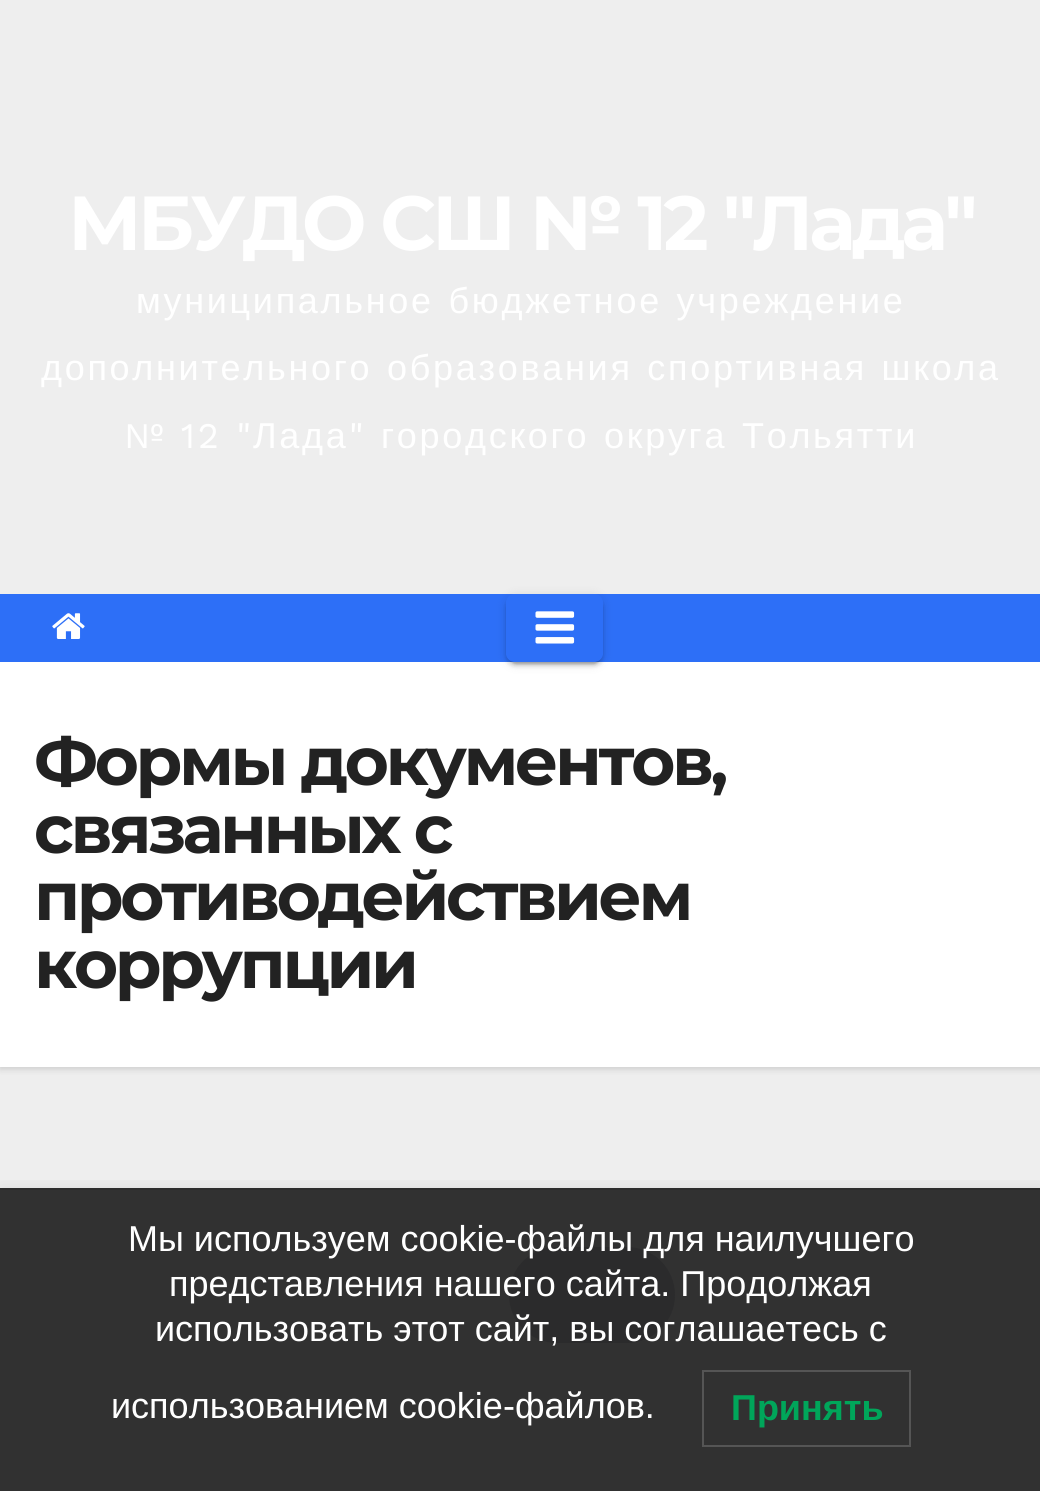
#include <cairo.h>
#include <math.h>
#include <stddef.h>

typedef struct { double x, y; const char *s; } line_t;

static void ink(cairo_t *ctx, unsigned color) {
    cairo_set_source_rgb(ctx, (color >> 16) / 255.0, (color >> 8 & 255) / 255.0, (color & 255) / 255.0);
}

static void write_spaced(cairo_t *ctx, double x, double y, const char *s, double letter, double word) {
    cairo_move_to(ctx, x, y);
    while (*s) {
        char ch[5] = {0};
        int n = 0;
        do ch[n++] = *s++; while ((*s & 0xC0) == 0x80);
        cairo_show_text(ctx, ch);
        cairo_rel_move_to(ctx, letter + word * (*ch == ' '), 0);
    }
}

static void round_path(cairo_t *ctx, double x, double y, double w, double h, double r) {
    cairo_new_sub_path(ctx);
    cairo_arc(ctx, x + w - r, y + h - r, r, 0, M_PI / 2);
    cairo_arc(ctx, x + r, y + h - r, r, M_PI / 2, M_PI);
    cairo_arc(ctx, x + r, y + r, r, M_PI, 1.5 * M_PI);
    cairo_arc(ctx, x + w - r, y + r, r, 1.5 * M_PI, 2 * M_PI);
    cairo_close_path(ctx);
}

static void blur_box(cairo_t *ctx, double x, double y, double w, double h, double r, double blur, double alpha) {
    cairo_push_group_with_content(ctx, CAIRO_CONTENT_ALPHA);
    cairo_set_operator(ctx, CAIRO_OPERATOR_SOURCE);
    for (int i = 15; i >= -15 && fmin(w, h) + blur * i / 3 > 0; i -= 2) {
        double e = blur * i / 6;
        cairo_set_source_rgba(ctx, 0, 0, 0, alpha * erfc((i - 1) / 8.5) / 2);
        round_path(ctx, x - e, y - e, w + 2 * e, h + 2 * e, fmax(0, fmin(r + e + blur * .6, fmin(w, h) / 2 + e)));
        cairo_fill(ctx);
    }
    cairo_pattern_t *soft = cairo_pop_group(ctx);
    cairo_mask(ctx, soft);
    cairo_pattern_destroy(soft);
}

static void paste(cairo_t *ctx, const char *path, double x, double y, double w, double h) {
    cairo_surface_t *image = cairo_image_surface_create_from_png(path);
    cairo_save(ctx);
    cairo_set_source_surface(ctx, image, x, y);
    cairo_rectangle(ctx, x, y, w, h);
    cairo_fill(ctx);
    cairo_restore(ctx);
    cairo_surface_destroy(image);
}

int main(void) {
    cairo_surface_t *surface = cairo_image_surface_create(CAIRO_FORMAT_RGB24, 1040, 1491);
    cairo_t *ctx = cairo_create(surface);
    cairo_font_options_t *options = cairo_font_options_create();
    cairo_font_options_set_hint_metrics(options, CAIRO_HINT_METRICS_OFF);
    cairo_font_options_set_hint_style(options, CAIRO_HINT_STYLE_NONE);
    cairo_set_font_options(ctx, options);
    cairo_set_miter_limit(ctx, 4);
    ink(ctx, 0xEEEEEE);
    cairo_paint(ctx);
    ink(ctx, 0x313131);
    cairo_rectangle(ctx, 0, 1190, 1040, 301);
    cairo_fill(ctx);
    cairo_select_font_face(ctx, "Montserrat", CAIRO_FONT_SLANT_NORMAL, CAIRO_FONT_WEIGHT_BOLD);
    cairo_set_font_size(ctx, 76.5);
    ink(ctx, 0xFFFFFF);
    write_spaced(ctx, 68, 250, "МБУДО СШ № 12 \"Лада\"", -3.8, 0);
    cairo_select_font_face(ctx, "Liberation Sans", CAIRO_FONT_SLANT_NORMAL, CAIRO_FONT_WEIGHT_NORMAL);
    cairo_set_font_size(ctx, 36);
    write_spaced(ctx, 136, 313, "муниципальное бюджетное учреждение", 2.7, 2);
    write_spaced(ctx, 41, 380, "дополнительного образования спортивная школа", 2.7, 2);
    cairo_select_font_face(ctx, "Work Sans", CAIRO_FONT_SLANT_NORMAL, CAIRO_FONT_WEIGHT_NORMAL);
    write_spaced(ctx, 124, 448, "№ 12 \"", 2.7, 0);
    cairo_select_font_face(ctx, "Liberation Sans", CAIRO_FONT_SLANT_NORMAL, CAIRO_FONT_WEIGHT_NORMAL);
    write_spaced(ctx, 253, 448, "Лада", 2.7, 0);
    cairo_select_font_face(ctx, "Work Sans", CAIRO_FONT_SLANT_NORMAL, CAIRO_FONT_WEIGHT_NORMAL);
    write_spaced(ctx, 349, 448, "\"", 2.7, 0);
    cairo_select_font_face(ctx, "Liberation Sans", CAIRO_FONT_SLANT_NORMAL, CAIRO_FONT_WEIGHT_NORMAL);
    {
        static const line_t items[] = {
            {381, 448, "городского"},
            {604, 448, "округа"},
            {742, 448, "Тольятти"},
        };
        for (size_t i = 0; i < sizeof items / sizeof *items; i++) {
            write_spaced(ctx, items[i].x, items[i].y, items[i].s, 2.7, 0);
        }
    }
    ink(ctx, 0x000000);
    blur_box(ctx, 0, 664, 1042, 405, 0, 3.5, 0.15);
    ink(ctx, 0x2D6FF7);
    cairo_rectangle(ctx, 0, 594, 1040, 68);
    cairo_fill(ctx);
    paste(ctx, "media/1.png", 52, 613, 33, 26);
    ink(ctx, 0xFFFFFF);
    cairo_rectangle(ctx, 0, 662, 1040, 405);
    cairo_fill(ctx);
    cairo_save(ctx);
    cairo_set_fill_rule(ctx, CAIRO_FILL_RULE_EVEN_ODD);
    cairo_new_path(ctx);
    cairo_move_to(ctx, 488, 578);
    cairo_line_to(ctx, 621, 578);
    cairo_line_to(ctx, 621, 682);
    cairo_line_to(ctx, 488, 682);
    cairo_close_path(ctx);
    cairo_move_to(ctx, 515, 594);
    cairo_line_to(ctx, 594, 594);
    cairo_curve_to(ctx, 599, 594, 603, 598, 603, 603);
    cairo_line_to(ctx, 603, 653);
    cairo_curve_to(ctx, 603, 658, 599, 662, 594, 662);
    cairo_line_to(ctx, 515, 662);
    cairo_curve_to(ctx, 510, 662, 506, 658, 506, 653);
    cairo_line_to(ctx, 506, 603);
    cairo_curve_to(ctx, 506, 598, 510, 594, 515, 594);
    cairo_close_path(ctx);
    cairo_clip(ctx);
    ink(ctx, 0x000000);
    blur_box(ctx, 506, 596, 97, 68, 9, 5.5, 0.12);
    cairo_restore(ctx);
    cairo_save(ctx);
    cairo_set_fill_rule(ctx, CAIRO_FILL_RULE_EVEN_ODD);
    cairo_new_path(ctx);
    cairo_move_to(ctx, 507, 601);
    cairo_line_to(ctx, 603, 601);
    cairo_line_to(ctx, 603, 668);
    cairo_line_to(ctx, 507, 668);
    cairo_close_path(ctx);
    cairo_move_to(ctx, 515, 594);
    cairo_line_to(ctx, 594, 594);
    cairo_curve_to(ctx, 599, 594, 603, 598, 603, 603);
    cairo_line_to(ctx, 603, 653);
    cairo_curve_to(ctx, 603, 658, 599, 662, 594, 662);
    cairo_line_to(ctx, 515, 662);
    cairo_curve_to(ctx, 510, 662, 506, 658, 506, 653);
    cairo_line_to(ctx, 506, 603);
    cairo_curve_to(ctx, 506, 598, 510, 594, 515, 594);
    cairo_close_path(ctx);
    cairo_clip(ctx);
    ink(ctx, 0x000000);
    blur_box(ctx, 511, 605, 88, 59, 5, 1, 0.2);
    cairo_restore(ctx);
    cairo_save(ctx);
    cairo_set_fill_rule(ctx, CAIRO_FILL_RULE_EVEN_ODD);
    cairo_new_path(ctx);
    cairo_move_to(ctx, 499, 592);
    cairo_line_to(ctx, 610, 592);
    cairo_line_to(ctx, 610, 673);
    cairo_line_to(ctx, 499, 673);
    cairo_close_path(ctx);
    cairo_move_to(ctx, 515, 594);
    cairo_line_to(ctx, 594, 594);
    cairo_curve_to(ctx, 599, 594, 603, 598, 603, 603);
    cairo_line_to(ctx, 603, 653);
    cairo_curve_to(ctx, 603, 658, 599, 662, 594, 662);
    cairo_line_to(ctx, 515, 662);
    cairo_curve_to(ctx, 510, 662, 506, 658, 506, 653);
    cairo_line_to(ctx, 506, 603);
    cairo_curve_to(ctx, 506, 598, 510, 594, 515, 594);
    cairo_close_path(ctx);
    cairo_clip(ctx);
    ink(ctx, 0x000000);
    blur_box(ctx, 506, 599, 97, 67, 9, 2, 0.14);
    cairo_restore(ctx);
    paste(ctx, "media/2.png", 535, 611, 40, 33);
    cairo_select_font_face(ctx, "Montserrat", CAIRO_FONT_SLANT_NORMAL, CAIRO_FONT_WEIGHT_BOLD);
    cairo_set_font_size(ctx, 67.5);
    ink(ctx, 0x222222);
    {
        static const line_t items[] = {
            {34, 785, "Формы документов,"},
            {34, 853, "связанных с"},
            {34, 920, "противодействием"},
            {34, 988, "коррупции"},
        };
        for (size_t i = 0; i < sizeof items / sizeof *items; i++) {
            write_spaced(ctx, items[i].x, items[i].y, items[i].s, -3.4, 0);
        }
    }
    ink(ctx, 0x2B2B2C);
    round_path(ctx, 509, 1247, 166, 96, 48);
    cairo_fill(ctx);
    cairo_save(ctx);
    cairo_rectangle(ctx, 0, 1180, 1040, 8);
    cairo_clip(ctx);
    ink(ctx, 0x000000);
    blur_box(ctx, 0, 1188, 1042, 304, 0, 9, 0.1);
    cairo_restore(ctx);
    ink(ctx, 0x2B2B2B);
    cairo_rectangle(ctx, 0, 1188, 1040, 2);
    cairo_fill(ctx);
    cairo_select_font_face(ctx, "Liberation Sans", CAIRO_FONT_SLANT_NORMAL, CAIRO_FONT_WEIGHT_NORMAL);
    cairo_set_font_size(ctx, 36);
    ink(ctx, 0xFFFFFF);
    {
        static const line_t items[] = {
            {128, 1251, "Мы используем cookie-файлы для наилучшего"},
            {169, 1296, "представления нашего сайта. Продолжая"},
            {155, 1341, "использовать этот сайт, вы соглашаетесь с"},
            {111, 1418, "использованием cookie-файлов."},
        };
        for (size_t i = 0; i < sizeof items / sizeof *items; i++) {
            cairo_move_to(ctx, items[i].x, items[i].y);
            cairo_show_text(ctx, items[i].s);
        }
    }
    cairo_rectangle(ctx, 703, 1371, 207, 75);
    ink(ctx, 0x555555);
    cairo_stroke(ctx);
    cairo_select_font_face(ctx, "Liberation Sans", CAIRO_FONT_SLANT_NORMAL, CAIRO_FONT_WEIGHT_BOLD);
    ink(ctx, 0x00A65A);
    cairo_move_to(ctx, 731, 1420);
    cairo_show_text(ctx, "Принять");
    cairo_surface_write_to_png(surface, "image.png");
    cairo_font_options_destroy(options);
    cairo_destroy(ctx);
    cairo_surface_destroy(surface);
    return 0;
}
